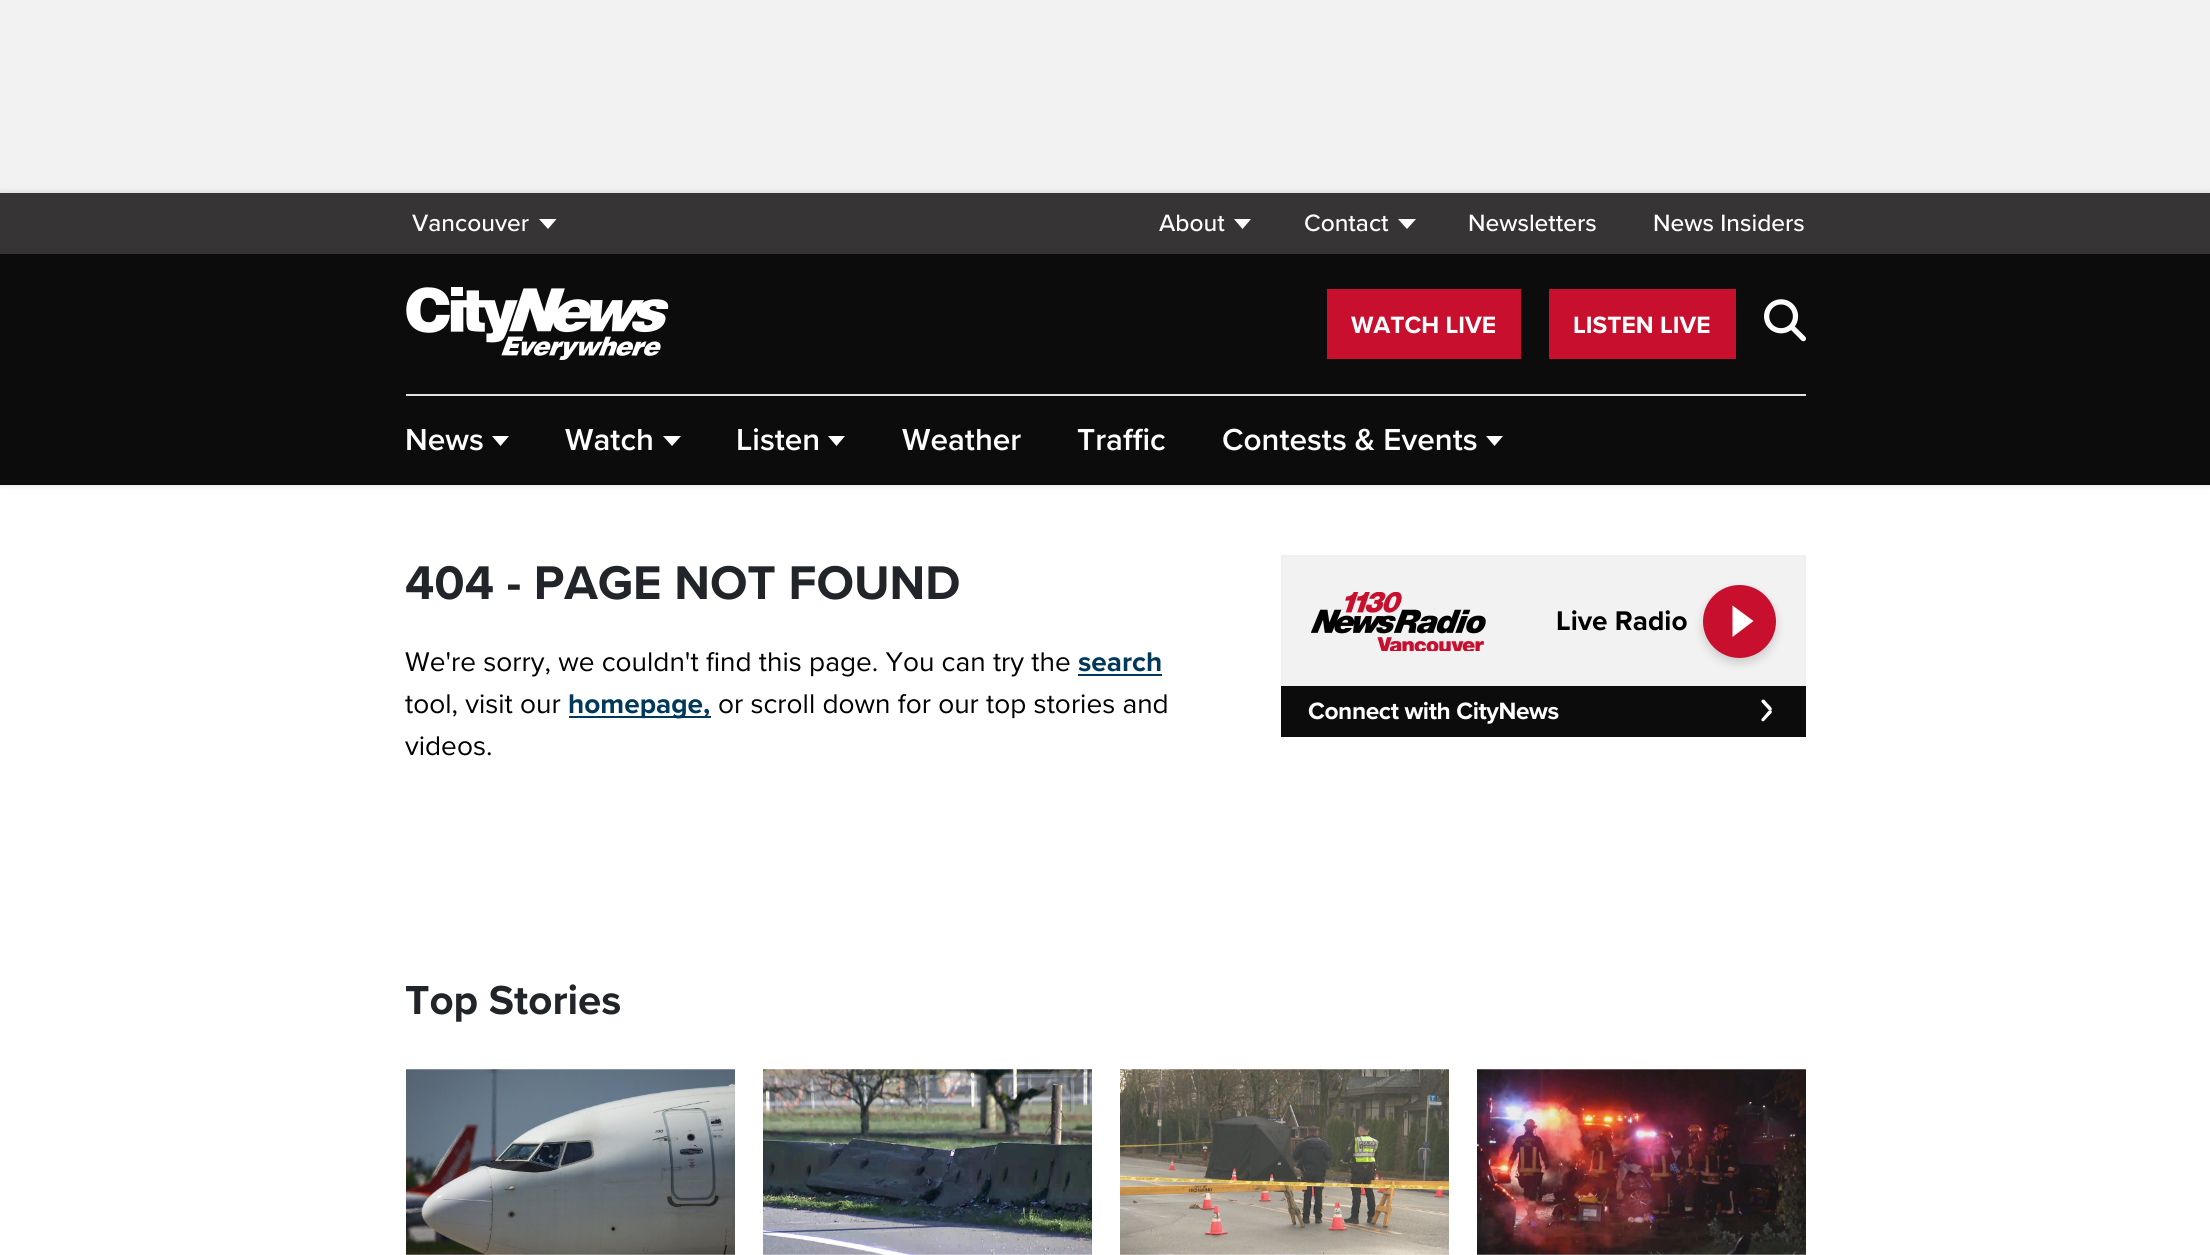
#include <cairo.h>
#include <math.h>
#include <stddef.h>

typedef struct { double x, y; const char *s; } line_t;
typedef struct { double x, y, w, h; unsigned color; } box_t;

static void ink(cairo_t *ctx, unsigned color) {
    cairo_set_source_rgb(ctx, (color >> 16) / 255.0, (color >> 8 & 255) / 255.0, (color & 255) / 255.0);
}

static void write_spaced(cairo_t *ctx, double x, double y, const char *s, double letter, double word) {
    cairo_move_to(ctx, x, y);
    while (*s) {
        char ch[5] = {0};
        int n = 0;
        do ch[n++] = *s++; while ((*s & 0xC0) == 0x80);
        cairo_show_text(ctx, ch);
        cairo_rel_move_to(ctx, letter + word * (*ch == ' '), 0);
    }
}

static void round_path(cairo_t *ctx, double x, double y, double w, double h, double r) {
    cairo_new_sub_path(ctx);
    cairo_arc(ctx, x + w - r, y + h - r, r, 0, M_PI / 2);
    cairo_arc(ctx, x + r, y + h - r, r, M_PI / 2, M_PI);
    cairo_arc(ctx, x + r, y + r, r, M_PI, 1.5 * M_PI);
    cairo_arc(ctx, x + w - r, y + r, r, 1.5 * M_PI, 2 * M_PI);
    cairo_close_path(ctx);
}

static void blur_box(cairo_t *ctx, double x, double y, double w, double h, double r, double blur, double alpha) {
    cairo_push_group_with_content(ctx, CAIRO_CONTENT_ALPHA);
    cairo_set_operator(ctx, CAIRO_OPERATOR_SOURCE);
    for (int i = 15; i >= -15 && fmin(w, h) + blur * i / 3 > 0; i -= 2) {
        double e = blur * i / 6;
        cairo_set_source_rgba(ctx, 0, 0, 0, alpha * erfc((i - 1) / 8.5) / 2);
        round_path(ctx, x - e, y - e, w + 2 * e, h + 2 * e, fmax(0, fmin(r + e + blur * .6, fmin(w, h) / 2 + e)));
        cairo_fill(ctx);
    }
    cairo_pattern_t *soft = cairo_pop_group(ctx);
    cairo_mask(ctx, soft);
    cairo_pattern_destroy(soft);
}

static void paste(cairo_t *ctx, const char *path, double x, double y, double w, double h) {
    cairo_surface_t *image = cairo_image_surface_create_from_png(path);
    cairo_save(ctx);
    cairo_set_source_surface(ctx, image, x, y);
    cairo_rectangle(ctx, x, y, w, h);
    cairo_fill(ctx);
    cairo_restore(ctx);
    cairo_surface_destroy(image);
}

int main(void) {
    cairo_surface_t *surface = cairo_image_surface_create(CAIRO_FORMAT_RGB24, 2210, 1255);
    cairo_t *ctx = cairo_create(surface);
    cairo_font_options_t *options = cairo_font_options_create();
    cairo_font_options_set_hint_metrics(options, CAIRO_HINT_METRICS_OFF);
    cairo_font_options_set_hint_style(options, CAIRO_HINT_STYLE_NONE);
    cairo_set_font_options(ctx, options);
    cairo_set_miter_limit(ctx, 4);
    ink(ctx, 0xFFFFFF);
    cairo_paint(ctx);
    ink(ctx, 0xF2F2F2);
    cairo_rectangle(ctx, 0, 0, 2210, 193);
    cairo_fill(ctx);
    ink(ctx, 0x000000);
    blur_box(ctx, 0, 193, 2210, 292, 0, 3.5, 0.15);
    ink(ctx, 0x0C0C0C);
    cairo_rectangle(ctx, 0, 254, 2210, 231);
    cairo_fill(ctx);
    ink(ctx, 0x363434);
    cairo_rectangle(ctx, 0, 193, 2210, 61);
    cairo_fill(ctx);
    cairo_select_font_face(ctx, "Proxima Nova Medium", CAIRO_FONT_SLANT_NORMAL, CAIRO_FONT_WEIGHT_NORMAL);
    cairo_set_font_size(ctx, 24.5);
    ink(ctx, 0xFFFFFF);
    cairo_move_to(ctx, 412, 231);
    cairo_show_text(ctx, "Vancouver");
    cairo_new_path(ctx);
    cairo_move_to(ctx, 539, 219);
    cairo_line_to(ctx, 556.5, 219);
    cairo_line_to(ctx, 548, 229);
    cairo_close_path(ctx);
    cairo_fill(ctx);
    cairo_move_to(ctx, 1159, 231);
    cairo_show_text(ctx, "About");
    cairo_new_path(ctx);
    cairo_move_to(ctx, 1234, 219);
    cairo_line_to(ctx, 1251, 219);
    cairo_line_to(ctx, 1242.5, 229);
    cairo_close_path(ctx);
    cairo_fill(ctx);
    cairo_move_to(ctx, 1304, 231);
    cairo_show_text(ctx, "Contact");
    cairo_new_path(ctx);
    cairo_move_to(ctx, 1398, 219);
    cairo_line_to(ctx, 1416, 219);
    cairo_line_to(ctx, 1407, 229);
    cairo_close_path(ctx);
    cairo_fill(ctx);
    cairo_move_to(ctx, 1468, 231);
    cairo_show_text(ctx, "Newsletters");
    cairo_move_to(ctx, 1653, 231);
    cairo_show_text(ctx, "News Insiders");
    paste(ctx, "media/1.png", 406, 287, 263, 73);
    ink(ctx, 0xC8102E);
    cairo_rectangle(ctx, 1327, 289, 194, 70);
    cairo_fill(ctx);
    cairo_select_font_face(ctx, "Proxima Nova", CAIRO_FONT_SLANT_NORMAL, CAIRO_FONT_WEIGHT_BOLD);
    ink(ctx, 0xFFFFFF);
    cairo_move_to(ctx, 1351, 333);
    cairo_show_text(ctx, "WATCH LIVE");
    ink(ctx, 0xC8102E);
    cairo_rectangle(ctx, 1549, 289, 187, 70);
    cairo_fill(ctx);
    ink(ctx, 0xFFFFFF);
    cairo_move_to(ctx, 1573, 333);
    cairo_show_text(ctx, "LISTEN LIVE");
    paste(ctx, "media/2.png", 1764, 299, 42, 43);
    ink(ctx, 0xE2E2E2);
    cairo_rectangle(ctx, 406, 394, 1400, 2);
    cairo_fill(ctx);
    cairo_select_font_face(ctx, "Proxima Nova SemiBold", CAIRO_FONT_SLANT_NORMAL, CAIRO_FONT_WEIGHT_NORMAL);
    cairo_set_font_size(ctx, 31.5);
    ink(ctx, 0xFFFFFF);
    cairo_move_to(ctx, 405, 450);
    cairo_show_text(ctx, "News");
    cairo_new_path(ctx);
    cairo_move_to(ctx, 492, 436);
    cairo_line_to(ctx, 509, 436);
    cairo_line_to(ctx, 500.5, 446);
    cairo_close_path(ctx);
    cairo_fill(ctx);
    cairo_move_to(ctx, 565, 450);
    cairo_show_text(ctx, "Watch");
    cairo_new_path(ctx);
    cairo_move_to(ctx, 663, 436);
    cairo_line_to(ctx, 681, 436);
    cairo_line_to(ctx, 672, 446);
    cairo_close_path(ctx);
    cairo_fill(ctx);
    cairo_move_to(ctx, 736, 450);
    cairo_show_text(ctx, "Listen");
    cairo_new_path(ctx);
    cairo_move_to(ctx, 828, 436);
    cairo_line_to(ctx, 845, 436);
    cairo_line_to(ctx, 836.5, 446);
    cairo_close_path(ctx);
    cairo_fill(ctx);
    {
        static const line_t items[] = {
            {902, 450, "Weather"},
            {1077, 450, "Traffic"},
            {1222, 450, "Contests & Events"},
        };
        for (size_t i = 0; i < sizeof items / sizeof *items; i++) {
            cairo_move_to(ctx, items[i].x, items[i].y);
            cairo_show_text(ctx, items[i].s);
        }
    }
    cairo_new_path(ctx);
    cairo_move_to(ctx, 1486, 436);
    cairo_line_to(ctx, 1503, 436);
    cairo_line_to(ctx, 1494.5, 446);
    cairo_close_path(ctx);
    cairo_fill(ctx);
    cairo_select_font_face(ctx, "Proxima Nova", CAIRO_FONT_SLANT_NORMAL, CAIRO_FONT_WEIGHT_BOLD);
    cairo_set_font_size(ctx, 49);
    ink(ctx, 0x212529);
    cairo_move_to(ctx, 405, 599);
    cairo_show_text(ctx, "404 - PAGE NOT FOUND");
    cairo_select_font_face(ctx, "Proxima Nova", CAIRO_FONT_SLANT_NORMAL, CAIRO_FONT_WEIGHT_NORMAL);
    cairo_set_font_size(ctx, 28);
    ink(ctx, 0x000000);
    cairo_move_to(ctx, 405, 671);
    cairo_show_text(ctx, "We're sorry, we couldn't find this page. You can try the");
    cairo_select_font_face(ctx, "Proxima Nova", CAIRO_FONT_SLANT_NORMAL, CAIRO_FONT_WEIGHT_BOLD);
    ink(ctx, 0x01395C);
    cairo_move_to(ctx, 1078, 671);
    cairo_show_text(ctx, "search");
    cairo_rectangle(ctx, 1078, 674, 84, 2);
    cairo_fill(ctx);
    cairo_select_font_face(ctx, "Proxima Nova", CAIRO_FONT_SLANT_NORMAL, CAIRO_FONT_WEIGHT_NORMAL);
    ink(ctx, 0x000000);
    cairo_move_to(ctx, 405, 713);
    cairo_show_text(ctx, "tool, visit our");
    ink(ctx, 0x01395C);
    cairo_rectangle(ctx, 569, 716, 142, 2);
    cairo_fill(ctx);
    cairo_select_font_face(ctx, "Proxima Nova", CAIRO_FONT_SLANT_NORMAL, CAIRO_FONT_WEIGHT_BOLD);
    cairo_move_to(ctx, 568, 713);
    cairo_show_text(ctx, "homepage,");
    cairo_select_font_face(ctx, "Proxima Nova", CAIRO_FONT_SLANT_NORMAL, CAIRO_FONT_WEIGHT_NORMAL);
    ink(ctx, 0x000000);
    cairo_move_to(ctx, 718, 713);
    cairo_show_text(ctx, "or scroll down for our top stories and");
    cairo_move_to(ctx, 405, 755);
    cairo_show_text(ctx, "videos.");
    {
        static const box_t items[] = {
            {1283, 557, 521, 129, 0xF2F2F2},
            {1281, 555, 525, 2, 0xEFEFEF},
            {1804, 555, 2, 131, 0xEFEFEF},
            {1281, 555, 2, 131, 0xEFEFEF},
        };
        for (size_t i = 0; i < sizeof items / sizeof *items; i++) {
            ink(ctx, items[i].color);
            cairo_rectangle(ctx, items[i].x, items[i].y, items[i].w, items[i].h);
            cairo_fill(ctx);
        }
    }
    paste(ctx, "media/3.png", 1311, 592, 175, 59);
    cairo_select_font_face(ctx, "Proxima Nova", CAIRO_FONT_SLANT_NORMAL, CAIRO_FONT_WEIGHT_BOLD);
    ink(ctx, 0x000000);
    cairo_move_to(ctx, 1556, 630);
    cairo_show_text(ctx, "Live Radio");
    ink(ctx, 0x000000);
    blur_box(ctx, 1703, 590, 73, 73, 36.5, 5, 0.16);
    ink(ctx, 0xC8102E);
    cairo_arc(ctx, 1739.5, 621.5, 36.5, 0, 2 * M_PI);
    cairo_fill(ctx);
    ink(ctx, 0xFFFFFF);
    cairo_new_path(ctx);
    cairo_move_to(ctx, 1732.5, 637);
    cairo_line_to(ctx, 1732.5, 605.5);
    cairo_line_to(ctx, 1753.5, 621);
    cairo_close_path(ctx);
    cairo_fill(ctx);
    ink(ctx, 0x0C0C0C);
    cairo_rectangle(ctx, 1281, 686, 525, 51);
    cairo_fill(ctx);
    cairo_set_font_size(ctx, 24.5);
    ink(ctx, 0xFFFFFF);
    write_spaced(ctx, 1308, 719, "Connect with CityNews", -0.4, 0);
    cairo_new_path(ctx);
    cairo_move_to(ctx, 1764.5, 700);
    cairo_line_to(ctx, 1768, 704);
    cairo_curve_to(ctx, 1769, 705, 1773, 708.5, 1771.5, 710);
    cairo_curve_to(ctx, 1770, 712.5, 1767.5, 708.5, 1766.5, 707.5);
    cairo_line_to(ctx, 1761.5, 702);
    cairo_curve_to(ctx, 1761, 700, 1763, 699, 1764.5, 700);
    cairo_close_path(ctx);
    cairo_fill(ctx);
    cairo_new_path(ctx);
    cairo_move_to(ctx, 1762, 718.5);
    cairo_line_to(ctx, 1765.5, 714.5);
    cairo_curve_to(ctx, 1766.5, 713.5, 1769, 709, 1771, 710.5);
    cairo_curve_to(ctx, 1773.5, 712, 1770, 714.5, 1769, 715.5);
    cairo_line_to(ctx, 1764, 721);
    cairo_curve_to(ctx, 1762, 722, 1760.5, 720, 1762, 718.5);
    cairo_close_path(ctx);
    cairo_fill(ctx);
    cairo_set_font_size(ctx, 42);
    ink(ctx, 0x212529);
    cairo_move_to(ctx, 405, 1014);
    cairo_show_text(ctx, "Top Stories");
    paste(ctx, "media/4.png", 406, 1069, 329, 186);
    paste(ctx, "media/5.png", 763, 1069, 329, 186);
    paste(ctx, "media/6.png", 1120, 1069, 329, 186);
    paste(ctx, "media/7.png", 1477, 1069, 329, 186);
    cairo_surface_write_to_png(surface, "image.png");
    cairo_font_options_destroy(options);
    cairo_destroy(ctx);
    cairo_surface_destroy(surface);
    return 0;
}
